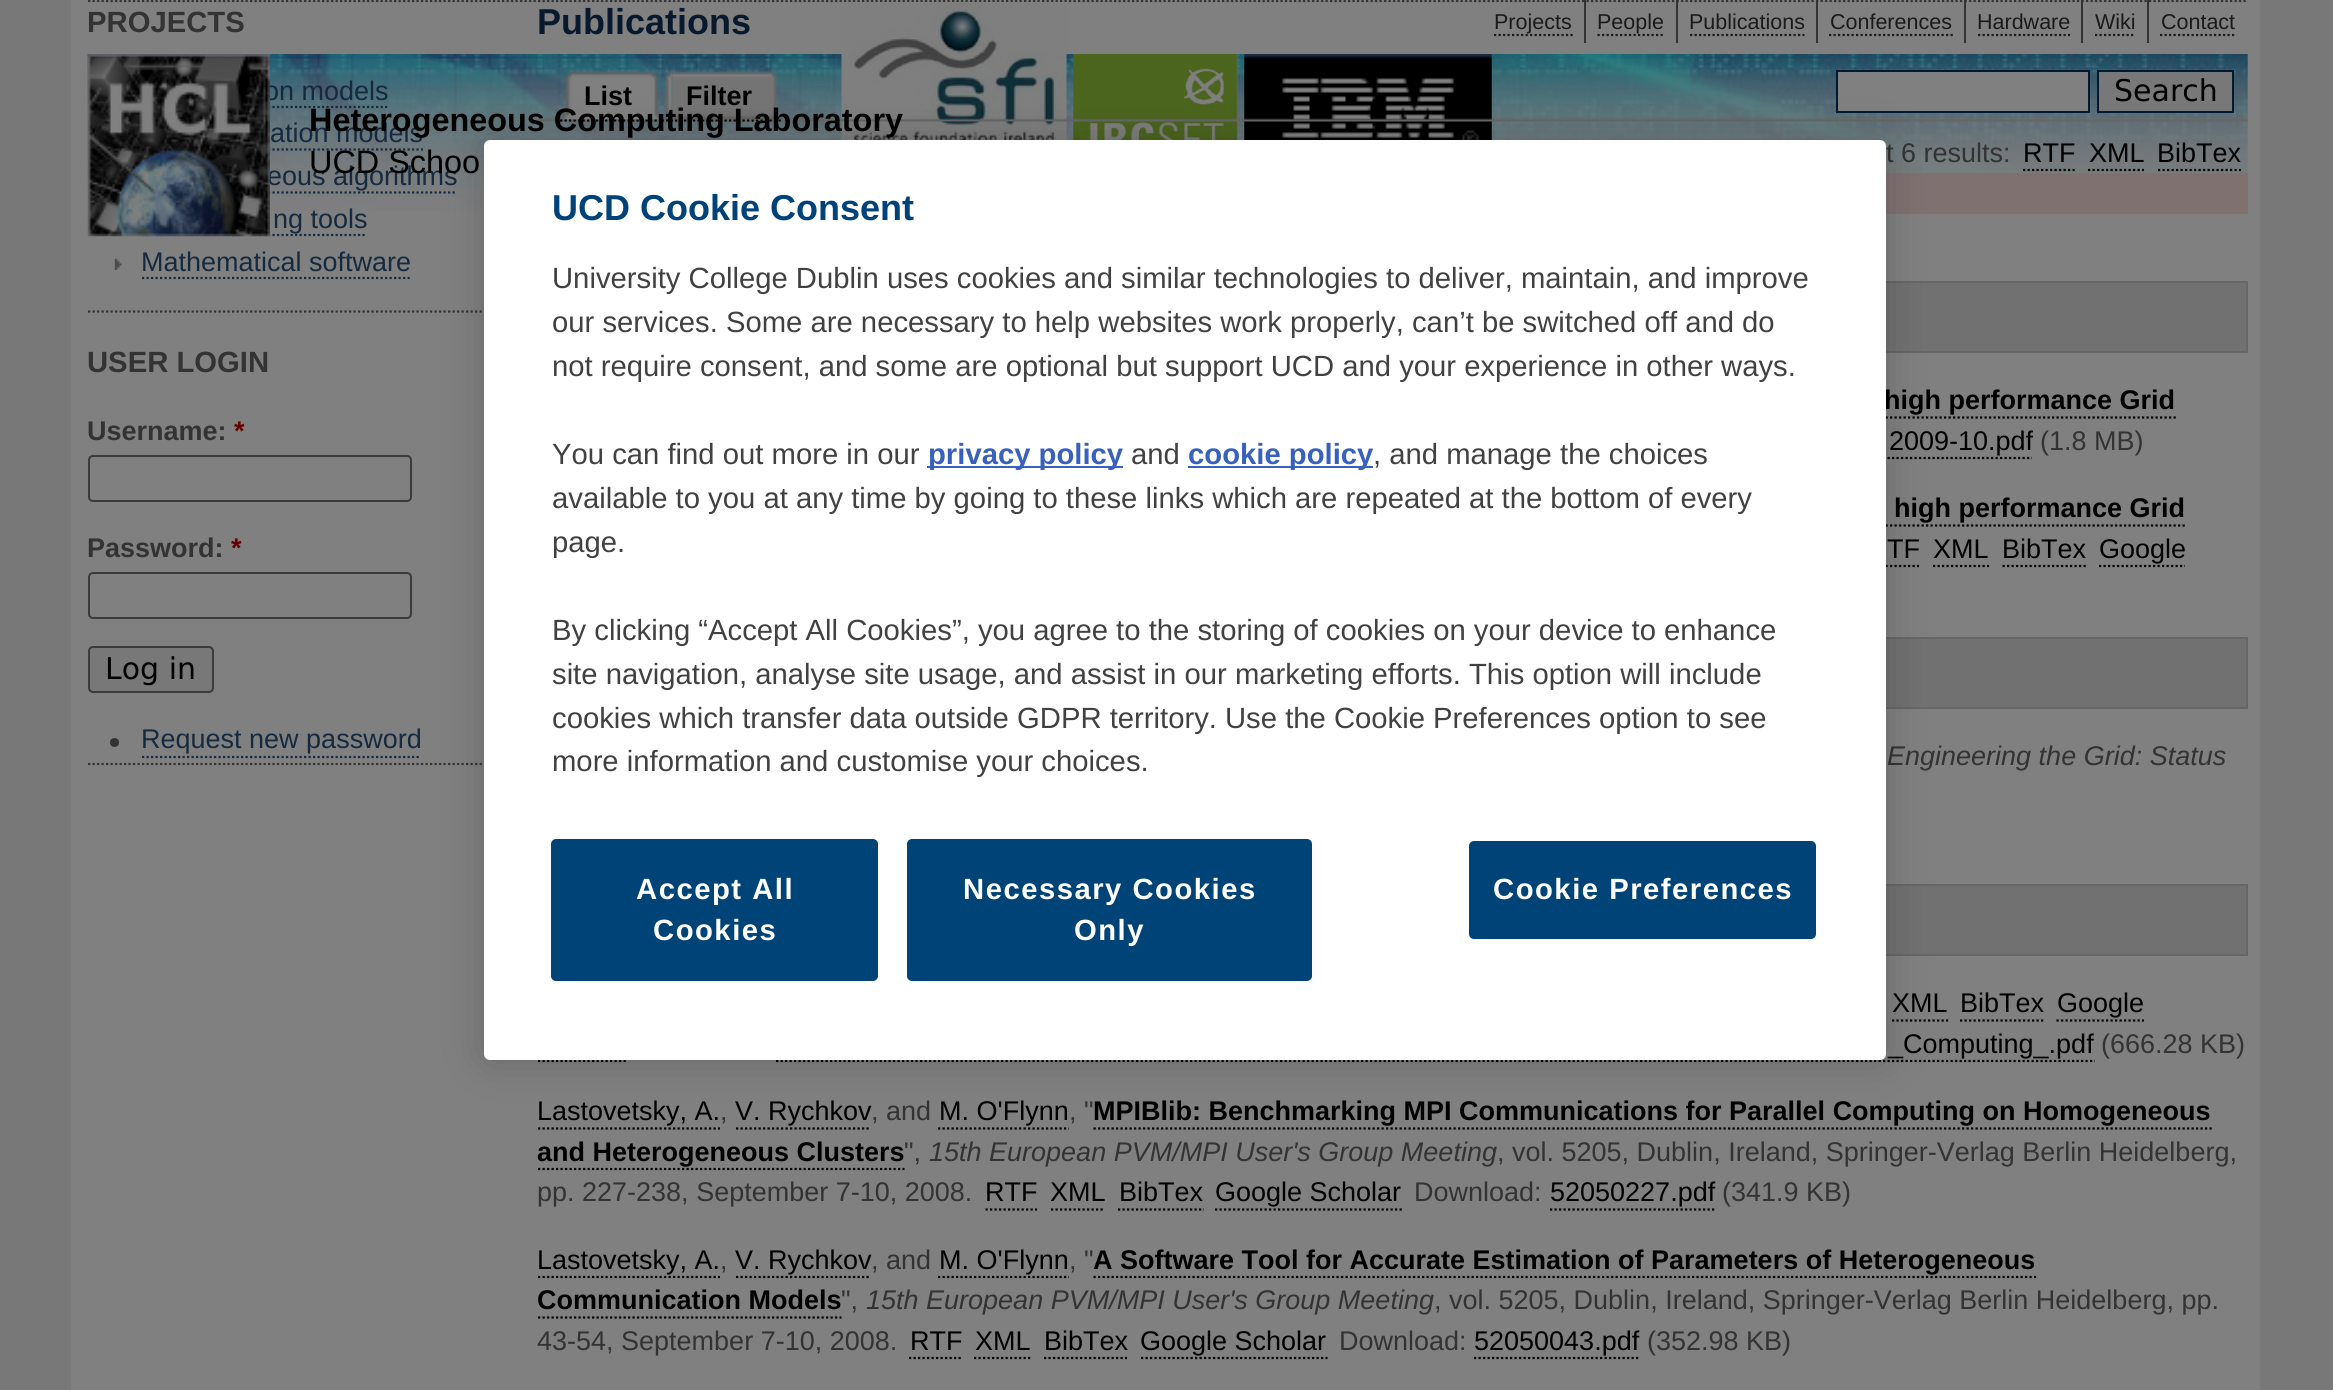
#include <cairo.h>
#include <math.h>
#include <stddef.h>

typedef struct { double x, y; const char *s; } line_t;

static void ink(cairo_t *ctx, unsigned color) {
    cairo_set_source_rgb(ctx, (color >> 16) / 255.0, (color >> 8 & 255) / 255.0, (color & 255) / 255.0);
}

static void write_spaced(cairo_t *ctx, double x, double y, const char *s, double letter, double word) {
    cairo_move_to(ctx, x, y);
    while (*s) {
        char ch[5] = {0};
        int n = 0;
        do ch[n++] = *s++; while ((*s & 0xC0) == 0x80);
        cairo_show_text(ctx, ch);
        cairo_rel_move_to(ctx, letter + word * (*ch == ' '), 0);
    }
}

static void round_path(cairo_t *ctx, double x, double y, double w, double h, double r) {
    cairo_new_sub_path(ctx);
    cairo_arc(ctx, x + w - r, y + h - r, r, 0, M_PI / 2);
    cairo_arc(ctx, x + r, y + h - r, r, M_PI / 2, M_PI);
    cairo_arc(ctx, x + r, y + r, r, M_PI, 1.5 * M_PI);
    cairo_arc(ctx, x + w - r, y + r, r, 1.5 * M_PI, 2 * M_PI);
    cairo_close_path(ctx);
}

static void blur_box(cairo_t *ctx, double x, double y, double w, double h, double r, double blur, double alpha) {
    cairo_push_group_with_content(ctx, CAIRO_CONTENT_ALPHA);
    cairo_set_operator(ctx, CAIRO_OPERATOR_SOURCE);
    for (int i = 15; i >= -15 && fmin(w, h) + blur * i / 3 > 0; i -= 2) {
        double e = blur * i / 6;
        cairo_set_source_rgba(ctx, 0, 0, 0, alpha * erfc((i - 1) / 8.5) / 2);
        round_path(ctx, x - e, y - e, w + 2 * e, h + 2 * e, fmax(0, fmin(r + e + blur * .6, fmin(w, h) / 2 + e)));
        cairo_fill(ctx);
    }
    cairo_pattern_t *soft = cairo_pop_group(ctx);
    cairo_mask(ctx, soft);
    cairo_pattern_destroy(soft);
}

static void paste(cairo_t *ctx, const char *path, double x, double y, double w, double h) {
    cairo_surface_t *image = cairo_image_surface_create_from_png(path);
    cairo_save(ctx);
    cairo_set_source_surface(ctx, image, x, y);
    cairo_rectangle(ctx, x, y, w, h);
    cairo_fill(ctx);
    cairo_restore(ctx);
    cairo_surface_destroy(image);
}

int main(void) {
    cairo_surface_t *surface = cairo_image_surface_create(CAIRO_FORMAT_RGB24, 2333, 1390);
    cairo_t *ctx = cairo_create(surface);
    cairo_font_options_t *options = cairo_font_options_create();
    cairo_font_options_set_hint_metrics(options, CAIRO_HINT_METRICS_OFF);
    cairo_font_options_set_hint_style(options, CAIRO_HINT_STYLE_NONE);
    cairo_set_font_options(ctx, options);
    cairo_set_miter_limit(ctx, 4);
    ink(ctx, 0x787878);
    cairo_paint(ctx);
    paste(ctx, "media/1.png", 70, 0, 2191, 1390);
    cairo_new_path(ctx);
    cairo_move_to(ctx, 88, 1);
    cairo_line_to(ctx, 2248, 1);
    ink(ctx, 0x333333);
    cairo_set_line_width(ctx, 2.2);
    cairo_set_dash(ctx, (double[]){2.25, 2.25}, 2, 0);
    cairo_stroke(ctx);
    paste(ctx, "media/11.png", 87, 54, 2161, 157);
    paste(ctx, "media/2.png", 841, 2, 226, 138);
    paste(ctx, "media/3.png", 1073, 54, 165, 86);
    paste(ctx, "media/4.png", 1244, 54, 248, 86);
    cairo_new_path(ctx);
    cairo_move_to(ctx, 88, 311.5);
    cairo_line_to(ctx, 493, 311.5);
    cairo_stroke(ctx);
    cairo_select_font_face(ctx, "Liberation Sans", CAIRO_FONT_SLANT_NORMAL, CAIRO_FONT_WEIGHT_BOLD);
    cairo_set_font_size(ctx, 29.25);
    cairo_move_to(ctx, 87, 32);
    cairo_show_text(ctx, "PROJECTS");
    cairo_select_font_face(ctx, "Liberation Sans", CAIRO_FONT_SLANT_NORMAL, CAIRO_FONT_WEIGHT_NORMAL);
    cairo_set_font_size(ctx, 27);
    ink(ctx, 0x162A3F);
    cairo_move_to(ctx, 264, 100);
    cairo_show_text(ctx, "on models");
    cairo_new_path(ctx);
    cairo_move_to(ctx, 142, 107);
    cairo_line_to(ctx, 389, 107);
    cairo_stroke(ctx);
    cairo_move_to(ctx, 270, 142);
    cairo_show_text(ctx, "ation models");
    cairo_new_path(ctx);
    cairo_move_to(ctx, 142, 149.5);
    cairo_line_to(ctx, 423, 149.5);
    cairo_stroke(ctx);
    cairo_move_to(ctx, 267, 185);
    cairo_show_text(ctx, "eous algorithms");
    cairo_new_path(ctx);
    cairo_move_to(ctx, 142, 192.5);
    cairo_line_to(ctx, 457, 192.5);
    cairo_stroke(ctx);
    cairo_new_path(ctx);
    cairo_move_to(ctx, 142, 235);
    cairo_line_to(ctx, 367, 235);
    cairo_stroke(ctx);
    cairo_move_to(ctx, 273, 228);
    cairo_show_text(ctx, "ng tools");
    paste(ctx, "media/5.png", 114, 258, 9, 12);
    cairo_move_to(ctx, 141, 271);
    cairo_show_text(ctx, "Mathematical software");
    cairo_new_path(ctx);
    cairo_move_to(ctx, 142, 278);
    cairo_line_to(ctx, 412, 278);
    cairo_stroke(ctx);
    cairo_new_path(ctx);
    cairo_move_to(ctx, 88, 764);
    cairo_line_to(ctx, 493, 764);
    ink(ctx, 0x333333);
    cairo_stroke(ctx);
    cairo_select_font_face(ctx, "Liberation Sans", CAIRO_FONT_SLANT_NORMAL, CAIRO_FONT_WEIGHT_BOLD);
    cairo_set_font_size(ctx, 29.25);
    cairo_move_to(ctx, 87, 372);
    cairo_show_text(ctx, "USER LOGIN");
    cairo_set_font_size(ctx, 27);
    cairo_move_to(ctx, 87, 440);
    cairo_show_text(ctx, "Username:");
    ink(ctx, 0x660000);
    cairo_move_to(ctx, 234, 440);
    cairo_show_text(ctx, "*");
    round_path(ctx, 89, 456, 322, 45, 4);
    ink(ctx, 0x3B3B3B);
    cairo_set_line_width(ctx, 2);
    cairo_set_dash(ctx, NULL, 0, 0);
    cairo_stroke(ctx);
    ink(ctx, 0x333333);
    cairo_move_to(ctx, 87, 557);
    cairo_show_text(ctx, "Password:");
    ink(ctx, 0x660000);
    cairo_move_to(ctx, 231, 557);
    cairo_show_text(ctx, "*");
    round_path(ctx, 89, 573, 322, 45, 4);
    ink(ctx, 0x3B3B3B);
    cairo_stroke(ctx);
    ink(ctx, 0x787878);
    round_path(ctx, 89, 647, 124, 45, 4);
    cairo_fill_preserve(ctx);
    ink(ctx, 0x3B3B3B);
    cairo_stroke(ctx);
    cairo_select_font_face(ctx, "DejaVu Sans", CAIRO_FONT_SLANT_NORMAL, CAIRO_FONT_WEIGHT_NORMAL);
    cairo_set_font_size(ctx, 30);
    ink(ctx, 0x000000);
    cairo_move_to(ctx, 105, 679);
    cairo_show_text(ctx, "Log in");
    ink(ctx, 0x333333);
    cairo_new_path(ctx);
    cairo_arc(ctx, 114.5, 742.5, 4.5, 0, 2 * M_PI);
    cairo_fill(ctx);
    cairo_select_font_face(ctx, "Liberation Sans", CAIRO_FONT_SLANT_NORMAL, CAIRO_FONT_WEIGHT_NORMAL);
    cairo_set_font_size(ctx, 27);
    ink(ctx, 0x162A3F);
    cairo_move_to(ctx, 141, 748);
    cairo_show_text(ctx, "Request new password");
    cairo_new_path(ctx);
    cairo_move_to(ctx, 142, 757);
    cairo_line_to(ctx, 421, 757);
    cairo_set_line_width(ctx, 2.2);
    cairo_set_dash(ctx, (double[]){2.25, 2.25}, 2, 0);
    cairo_stroke(ctx);
    cairo_select_font_face(ctx, "Liberation Sans", CAIRO_FONT_SLANT_NORMAL, CAIRO_FONT_WEIGHT_BOLD);
    cairo_set_font_size(ctx, 36);
    ink(ctx, 0x08192D);
    cairo_move_to(ctx, 537, 34);
    cairo_show_text(ctx, "Publications");
    paste(ctx, "media/6.png", 537, 118, 1711, 4);
    paste(ctx, "media/7.png", 560, 71, 14, 49);
    cairo_new_path(ctx);
    cairo_move_to(ctx, 560, 120.5);
    cairo_line_to(ctx, 661.5, 120.5);
    ink(ctx, 0x000000);
    cairo_stroke(ctx);
    paste(ctx, "media/8.png", 571, 71, 91, 49);
    cairo_set_font_size(ctx, 27);
    cairo_move_to(ctx, 584, 105);
    cairo_show_text(ctx, "List");
    paste(ctx, "media/9.png", 661, 71, 12, 49);
    cairo_new_path(ctx);
    cairo_move_to(ctx, 661.5, 120.5);
    cairo_line_to(ctx, 781, 120.5);
    cairo_stroke(ctx);
    paste(ctx, "media/10.png", 672, 71, 109, 49);
    cairo_move_to(ctx, 686, 105);
    cairo_show_text(ctx, "Filter");
    cairo_select_font_face(ctx, "Liberation Sans", CAIRO_FONT_SLANT_NORMAL, CAIRO_FONT_WEIGHT_NORMAL);
    ink(ctx, 0x333333);
    cairo_move_to(ctx, 1886, 162);
    cairo_show_text(ctx, "t 6 results:");
    ink(ctx, 0x000000);
    cairo_move_to(ctx, 2023, 162);
    cairo_show_text(ctx, "RTF");
    cairo_new_path(ctx);
    cairo_move_to(ctx, 2023, 170);
    cairo_line_to(ctx, 2077, 170);
    cairo_stroke(ctx);
    cairo_move_to(ctx, 2089, 162);
    cairo_show_text(ctx, "XML");
    cairo_new_path(ctx);
    cairo_move_to(ctx, 2088, 170);
    cairo_line_to(ctx, 2144, 170);
    cairo_stroke(ctx);
    cairo_move_to(ctx, 2157, 162);
    cairo_show_text(ctx, "BibTex");
    cairo_new_path(ctx);
    cairo_move_to(ctx, 2158, 170);
    cairo_line_to(ctx, 2241, 170);
    cairo_stroke(ctx);
    ink(ctx, 0x807171);
    cairo_rectangle(ctx, 1886, 173, 362, 41);
    cairo_fill(ctx);
    ink(ctx, 0x717171);
    cairo_rectangle(ctx, 1886, 283, 360, 68);
    cairo_fill(ctx);
    cairo_rectangle(ctx, 539, 282, 1708, 70);
    ink(ctx, 0x666666);
    cairo_set_line_width(ctx, 2);
    cairo_set_dash(ctx, NULL, 0, 0);
    cairo_stroke(ctx);
    cairo_select_font_face(ctx, "Liberation Sans", CAIRO_FONT_SLANT_NORMAL, CAIRO_FONT_WEIGHT_BOLD);
    ink(ctx, 0x000000);
    cairo_move_to(ctx, 1884, 409);
    cairo_show_text(ctx, "high performance Grid");
    cairo_new_path(ctx);
    cairo_move_to(ctx, 1368, 417.5);
    cairo_line_to(ctx, 2176, 417.5);
    cairo_set_line_width(ctx, 2.2);
    cairo_set_dash(ctx, (double[]){2.25, 2.25}, 2, 0);
    cairo_stroke(ctx);
    cairo_select_font_face(ctx, "Liberation Sans", CAIRO_FONT_SLANT_NORMAL, CAIRO_FONT_WEIGHT_NORMAL);
    cairo_move_to(ctx, 1889, 450);
    cairo_show_text(ctx, "2009-10.pdf");
    cairo_new_path(ctx);
    cairo_move_to(ctx, 1793, 458);
    cairo_line_to(ctx, 2032, 458);
    cairo_stroke(ctx);
    ink(ctx, 0x333333);
    cairo_move_to(ctx, 2040, 450);
    cairo_show_text(ctx, "(1.8 MB)");
    cairo_select_font_face(ctx, "Liberation Sans", CAIRO_FONT_SLANT_NORMAL, CAIRO_FONT_WEIGHT_BOLD);
    ink(ctx, 0x000000);
    cairo_move_to(ctx, 1894, 517);
    cairo_show_text(ctx, "high performance Grid");
    cairo_new_path(ctx);
    cairo_move_to(ctx, 1377, 525.5);
    cairo_line_to(ctx, 2185, 525.5);
    cairo_stroke(ctx);
    cairo_select_font_face(ctx, "Liberation Sans", CAIRO_FONT_SLANT_NORMAL, CAIRO_FONT_WEIGHT_NORMAL);
    cairo_move_to(ctx, 1887, 558);
    cairo_show_text(ctx, "TF");
    cairo_new_path(ctx);
    cairo_move_to(ctx, 1867.5, 566);
    cairo_line_to(ctx, 1919, 566);
    cairo_stroke(ctx);
    cairo_move_to(ctx, 1933, 558);
    cairo_show_text(ctx, "XML");
    cairo_new_path(ctx);
    cairo_move_to(ctx, 1933, 566);
    cairo_line_to(ctx, 1989, 566);
    cairo_stroke(ctx);
    cairo_move_to(ctx, 2002, 558);
    cairo_show_text(ctx, "BibTex");
    cairo_new_path(ctx);
    cairo_move_to(ctx, 2002.5, 566);
    cairo_line_to(ctx, 2086, 566);
    cairo_stroke(ctx);
    cairo_move_to(ctx, 2099, 558);
    cairo_show_text(ctx, "Google");
    cairo_new_path(ctx);
    cairo_move_to(ctx, 2099, 566);
    cairo_line_to(ctx, 2185, 566);
    cairo_stroke(ctx);
    ink(ctx, 0x717171);
    cairo_rectangle(ctx, 1886, 639, 360, 68);
    cairo_fill(ctx);
    cairo_rectangle(ctx, 539, 638, 1708, 70);
    ink(ctx, 0x666666);
    cairo_set_line_width(ctx, 2);
    cairo_set_dash(ctx, NULL, 0, 0);
    cairo_stroke(ctx);
    cairo_select_font_face(ctx, "Liberation Sans", CAIRO_FONT_SLANT_ITALIC, CAIRO_FONT_WEIGHT_NORMAL);
    ink(ctx, 0x333333);
    cairo_move_to(ctx, 1887, 765);
    cairo_show_text(ctx, "Engineering the Grid: Status");
    ink(ctx, 0x717171);
    cairo_rectangle(ctx, 1886, 886, 360, 68);
    cairo_fill(ctx);
    cairo_rectangle(ctx, 539, 885, 1708, 70);
    ink(ctx, 0x666666);
    cairo_stroke(ctx);
    cairo_select_font_face(ctx, "Liberation Sans", CAIRO_FONT_SLANT_NORMAL, CAIRO_FONT_WEIGHT_NORMAL);
    ink(ctx, 0x000000);
    cairo_move_to(ctx, 1892, 1012);
    cairo_show_text(ctx, "XML");
    cairo_new_path(ctx);
    cairo_move_to(ctx, 1892, 1020.5);
    cairo_line_to(ctx, 1948.5, 1020.5);
    cairo_set_line_width(ctx, 2.2);
    cairo_set_dash(ctx, (double[]){2.25, 2.25}, 2, 0);
    cairo_stroke(ctx);
    cairo_new_path(ctx);
    cairo_move_to(ctx, 538, 1061);
    cairo_line_to(ctx, 628, 1061);
    cairo_stroke(ctx);
    cairo_move_to(ctx, 1960, 1012);
    cairo_show_text(ctx, "BibTex");
    cairo_new_path(ctx);
    cairo_move_to(ctx, 1960, 1020.5);
    cairo_line_to(ctx, 2045, 1020.5);
    cairo_stroke(ctx);
    cairo_move_to(ctx, 2057, 1012);
    cairo_show_text(ctx, "Google");
    cairo_new_path(ctx);
    cairo_move_to(ctx, 2056.5, 1020.5);
    cairo_line_to(ctx, 2144, 1020.5);
    cairo_stroke(ctx);
    cairo_move_to(ctx, 1888, 1053);
    cairo_show_text(ctx, "_Computing_.pdf");
    cairo_new_path(ctx);
    cairo_move_to(ctx, 776, 1061);
    cairo_line_to(ctx, 2095, 1061);
    cairo_stroke(ctx);
    ink(ctx, 0x333333);
    cairo_move_to(ctx, 2101, 1053);
    cairo_show_text(ctx, "(666.28 KB)");
    ink(ctx, 0x000000);
    cairo_move_to(ctx, 537, 1120);
    cairo_show_text(ctx, "Lastovetsky, A.");
    ink(ctx, 0x333333);
    cairo_move_to(ctx, 720, 1120);
    cairo_show_text(ctx, ",");
    cairo_new_path(ctx);
    cairo_move_to(ctx, 538, 1128.5);
    cairo_line_to(ctx, 720, 1128.5);
    ink(ctx, 0x000000);
    cairo_stroke(ctx);
    cairo_new_path(ctx);
    cairo_move_to(ctx, 736, 1128.5);
    cairo_line_to(ctx, 871, 1128.5);
    cairo_stroke(ctx);
    cairo_move_to(ctx, 735, 1120);
    cairo_show_text(ctx, "V. Rychkov");
    ink(ctx, 0x333333);
    cairo_move_to(ctx, 871, 1120);
    cairo_show_text(ctx, ", and");
    ink(ctx, 0x000000);
    cairo_move_to(ctx, 939, 1120);
    cairo_show_text(ctx, "M. O'Flynn");
    cairo_new_path(ctx);
    cairo_move_to(ctx, 938, 1128.5);
    cairo_line_to(ctx, 1069, 1128.5);
    cairo_stroke(ctx);
    ink(ctx, 0x333333);
    cairo_move_to(ctx, 1069, 1120);
    cairo_show_text(ctx, ", \"");
    cairo_select_font_face(ctx, "Liberation Sans", CAIRO_FONT_SLANT_NORMAL, CAIRO_FONT_WEIGHT_BOLD);
    ink(ctx, 0x000000);
    cairo_move_to(ctx, 1093, 1120);
    cairo_show_text(ctx, "MPIBlib: Benchmarking MPI Communications for Parallel Computing on Homogeneous");
    cairo_new_path(ctx);
    cairo_move_to(ctx, 1093.5, 1128.5);
    cairo_line_to(ctx, 2212, 1128.5);
    cairo_stroke(ctx);
    cairo_move_to(ctx, 537, 1161);
    cairo_show_text(ctx, "and Heterogeneous Clusters");
    cairo_new_path(ctx);
    cairo_move_to(ctx, 538, 1169);
    cairo_line_to(ctx, 904.5, 1169);
    cairo_stroke(ctx);
    cairo_select_font_face(ctx, "Liberation Sans", CAIRO_FONT_SLANT_NORMAL, CAIRO_FONT_WEIGHT_NORMAL);
    ink(ctx, 0x333333);
    cairo_move_to(ctx, 904, 1161);
    cairo_show_text(ctx, "\",");
    cairo_select_font_face(ctx, "Liberation Sans", CAIRO_FONT_SLANT_ITALIC, CAIRO_FONT_WEIGHT_NORMAL);
    cairo_move_to(ctx, 929, 1161);
    cairo_show_text(ctx, "15th European PVM/MPI User's Group Meeting");
    cairo_select_font_face(ctx, "Liberation Sans", CAIRO_FONT_SLANT_NORMAL, CAIRO_FONT_WEIGHT_NORMAL);
    cairo_move_to(ctx, 1497, 1161);
    cairo_show_text(ctx, ", vol. 5205, Dublin, Ireland, Springer-Verlag Berlin Heidelberg,");
    cairo_move_to(ctx, 537, 1201);
    cairo_show_text(ctx, "pp. 227-238, September 7-10, 2008.");
    ink(ctx, 0x000000);
    cairo_move_to(ctx, 985, 1201);
    cairo_show_text(ctx, "RTF");
    cairo_new_path(ctx);
    cairo_move_to(ctx, 985.5, 1209.5);
    cairo_line_to(ctx, 1037, 1209.5);
    cairo_stroke(ctx);
    cairo_move_to(ctx, 1050, 1201);
    cairo_show_text(ctx, "XML");
    cairo_new_path(ctx);
    cairo_move_to(ctx, 1051, 1209.5);
    cairo_line_to(ctx, 1105, 1209.5);
    cairo_stroke(ctx);
    cairo_move_to(ctx, 1119, 1201);
    cairo_show_text(ctx, "BibTex");
    cairo_new_path(ctx);
    cairo_move_to(ctx, 1118, 1209.5);
    cairo_line_to(ctx, 1204, 1209.5);
    cairo_stroke(ctx);
    cairo_move_to(ctx, 1215, 1201);
    cairo_show_text(ctx, "Google Scholar");
    cairo_new_path(ctx);
    cairo_move_to(ctx, 1215, 1209.5);
    cairo_line_to(ctx, 1402, 1209.5);
    cairo_stroke(ctx);
    ink(ctx, 0x333333);
    cairo_move_to(ctx, 1414, 1201);
    cairo_show_text(ctx, "Download:");
    ink(ctx, 0x000000);
    cairo_move_to(ctx, 1550, 1201);
    cairo_show_text(ctx, "52050227.pdf");
    cairo_new_path(ctx);
    cairo_move_to(ctx, 1550, 1209.5);
    cairo_line_to(ctx, 1714.5, 1209.5);
    cairo_stroke(ctx);
    ink(ctx, 0x333333);
    cairo_move_to(ctx, 1722, 1201);
    cairo_show_text(ctx, "(341.9 KB)");
    ink(ctx, 0x000000);
    cairo_move_to(ctx, 537, 1269);
    cairo_show_text(ctx, "Lastovetsky, A.");
    ink(ctx, 0x333333);
    cairo_move_to(ctx, 720, 1269);
    cairo_show_text(ctx, ",");
    cairo_new_path(ctx);
    cairo_move_to(ctx, 538, 1277);
    cairo_line_to(ctx, 720, 1277);
    ink(ctx, 0x000000);
    cairo_stroke(ctx);
    cairo_new_path(ctx);
    cairo_move_to(ctx, 736, 1277);
    cairo_line_to(ctx, 871, 1277);
    cairo_stroke(ctx);
    cairo_move_to(ctx, 735, 1269);
    cairo_show_text(ctx, "V. Rychkov");
    ink(ctx, 0x333333);
    cairo_move_to(ctx, 871, 1269);
    cairo_show_text(ctx, ", and");
    ink(ctx, 0x000000);
    cairo_move_to(ctx, 939, 1269);
    cairo_show_text(ctx, "M. O'Flynn");
    cairo_new_path(ctx);
    cairo_move_to(ctx, 938, 1277);
    cairo_line_to(ctx, 1069, 1277);
    cairo_stroke(ctx);
    ink(ctx, 0x333333);
    cairo_move_to(ctx, 1069, 1269);
    cairo_show_text(ctx, ", \"");
    cairo_select_font_face(ctx, "Liberation Sans", CAIRO_FONT_SLANT_NORMAL, CAIRO_FONT_WEIGHT_BOLD);
    ink(ctx, 0x000000);
    cairo_move_to(ctx, 1093, 1269);
    cairo_show_text(ctx, "A Software Tool for Accurate Estimation of Parameters of Heterogeneous");
    cairo_new_path(ctx);
    cairo_move_to(ctx, 1093.5, 1277);
    cairo_line_to(ctx, 2036, 1277);
    cairo_stroke(ctx);
    cairo_move_to(ctx, 537, 1309);
    cairo_show_text(ctx, "Communication Models");
    cairo_select_font_face(ctx, "Liberation Sans", CAIRO_FONT_SLANT_NORMAL, CAIRO_FONT_WEIGHT_NORMAL);
    ink(ctx, 0x333333);
    cairo_move_to(ctx, 841, 1309);
    cairo_show_text(ctx, "\",");
    cairo_new_path(ctx);
    cairo_move_to(ctx, 538, 1317.5);
    cairo_line_to(ctx, 841.5, 1317.5);
    ink(ctx, 0x000000);
    cairo_stroke(ctx);
    cairo_select_font_face(ctx, "Liberation Sans", CAIRO_FONT_SLANT_ITALIC, CAIRO_FONT_WEIGHT_NORMAL);
    ink(ctx, 0x333333);
    cairo_move_to(ctx, 866, 1309);
    cairo_show_text(ctx, "15th European PVM/MPI User's Group Meeting");
    cairo_select_font_face(ctx, "Liberation Sans", CAIRO_FONT_SLANT_NORMAL, CAIRO_FONT_WEIGHT_NORMAL);
    cairo_move_to(ctx, 1434, 1309);
    cairo_show_text(ctx, ", vol. 5205, Dublin, Ireland, Springer-Verlag Berlin Heidelberg, pp.");
    cairo_move_to(ctx, 537, 1350);
    cairo_show_text(ctx, "43-54, September 7-10, 2008.");
    ink(ctx, 0x000000);
    cairo_move_to(ctx, 910, 1350);
    cairo_show_text(ctx, "RTF");
    cairo_new_path(ctx);
    cairo_move_to(ctx, 909, 1358);
    cairo_line_to(ctx, 963, 1358);
    cairo_stroke(ctx);
    cairo_move_to(ctx, 975, 1350);
    cairo_show_text(ctx, "XML");
    cairo_new_path(ctx);
    cairo_move_to(ctx, 974, 1358);
    cairo_line_to(ctx, 1030.5, 1358);
    cairo_stroke(ctx);
    cairo_move_to(ctx, 1044, 1350);
    cairo_show_text(ctx, "BibTex");
    cairo_new_path(ctx);
    cairo_move_to(ctx, 1044, 1358);
    cairo_line_to(ctx, 1127, 1358);
    cairo_stroke(ctx);
    cairo_move_to(ctx, 1140, 1350);
    cairo_show_text(ctx, "Google Scholar");
    cairo_new_path(ctx);
    cairo_move_to(ctx, 1141, 1358);
    cairo_line_to(ctx, 1327.5, 1358);
    cairo_stroke(ctx);
    ink(ctx, 0x333333);
    cairo_move_to(ctx, 1339, 1350);
    cairo_show_text(ctx, "Download:");
    ink(ctx, 0x000000);
    cairo_move_to(ctx, 1474, 1350);
    cairo_show_text(ctx, "52050043.pdf");
    cairo_new_path(ctx);
    cairo_move_to(ctx, 1474, 1358);
    cairo_line_to(ctx, 1640, 1358);
    cairo_stroke(ctx);
    ink(ctx, 0x333333);
    cairo_move_to(ctx, 1647, 1350);
    cairo_show_text(ctx, "(352.98 KB)");
    cairo_rectangle(ctx, 1584, 0, 2, 43);
    cairo_fill(ctx);
    cairo_new_path(ctx);
    cairo_move_to(ctx, 1494, 35);
    cairo_line_to(ctx, 1573, 35);
    ink(ctx, 0x1A1A1A);
    cairo_stroke(ctx);
    cairo_set_font_size(ctx, 21.5);
    cairo_move_to(ctx, 1494, 29);
    cairo_show_text(ctx, "Projects");
    ink(ctx, 0x333333);
    cairo_rectangle(ctx, 1676, 0, 2, 43);
    cairo_fill(ctx);
    cairo_new_path(ctx);
    cairo_move_to(ctx, 1597.5, 35);
    cairo_line_to(ctx, 1665, 35);
    ink(ctx, 0x1A1A1A);
    cairo_stroke(ctx);
    cairo_move_to(ctx, 1597, 29);
    cairo_show_text(ctx, "People");
    ink(ctx, 0x333333);
    cairo_rectangle(ctx, 1816, 0, 2, 43);
    cairo_fill(ctx);
    ink(ctx, 0x1A1A1A);
    cairo_move_to(ctx, 1689, 29);
    cairo_show_text(ctx, "Publications");
    cairo_new_path(ctx);
    cairo_move_to(ctx, 1690, 35);
    cairo_line_to(ctx, 1804.5, 35);
    cairo_stroke(ctx);
    ink(ctx, 0x333333);
    cairo_rectangle(ctx, 1964, 0, 2, 43);
    cairo_fill(ctx);
    ink(ctx, 0x1A1A1A);
    cairo_move_to(ctx, 1830, 29);
    cairo_show_text(ctx, "Conferences");
    cairo_new_path(ctx);
    cairo_move_to(ctx, 1829, 35);
    cairo_line_to(ctx, 1953, 35);
    cairo_stroke(ctx);
    ink(ctx, 0x333333);
    cairo_rectangle(ctx, 2081, 0, 2, 43);
    cairo_fill(ctx);
    ink(ctx, 0x1A1A1A);
    cairo_move_to(ctx, 1977, 29);
    cairo_show_text(ctx, "Hardware");
    cairo_new_path(ctx);
    cairo_move_to(ctx, 1978, 35);
    cairo_line_to(ctx, 2070, 35);
    cairo_stroke(ctx);
    ink(ctx, 0x333333);
    cairo_rectangle(ctx, 2147, 0, 2, 43);
    cairo_fill(ctx);
    ink(ctx, 0x1A1A1A);
    cairo_move_to(ctx, 2095, 29);
    cairo_show_text(ctx, "Wiki");
    cairo_new_path(ctx);
    cairo_move_to(ctx, 2095, 35);
    cairo_line_to(ctx, 2135, 35);
    cairo_stroke(ctx);
    cairo_move_to(ctx, 2161, 29);
    cairo_show_text(ctx, "Contact");
    cairo_new_path(ctx);
    cairo_move_to(ctx, 2160, 35);
    cairo_line_to(ctx, 2236.5, 35);
    cairo_stroke(ctx);
    ink(ctx, 0x808080);
    cairo_rectangle(ctx, 1837, 71, 252, 41);
    cairo_fill_preserve(ctx);
    ink(ctx, 0x001A33);
    cairo_set_line_width(ctx, 2);
    cairo_set_dash(ctx, NULL, 0, 0);
    cairo_stroke(ctx);
    ink(ctx, 0x787878);
    cairo_rectangle(ctx, 2098, 71, 135, 41);
    cairo_fill_preserve(ctx);
    ink(ctx, 0x001A33);
    cairo_stroke(ctx);
    cairo_select_font_face(ctx, "DejaVu Sans", CAIRO_FONT_SLANT_NORMAL, CAIRO_FONT_WEIGHT_NORMAL);
    cairo_set_font_size(ctx, 30);
    ink(ctx, 0x000000);
    cairo_move_to(ctx, 2114, 101);
    cairo_show_text(ctx, "Search");
    paste(ctx, "media/12.png", 87, 54, 183, 183);
    cairo_select_font_face(ctx, "Liberation Sans", CAIRO_FONT_SLANT_NORMAL, CAIRO_FONT_WEIGHT_BOLD);
    cairo_set_font_size(ctx, 32.4);
    cairo_move_to(ctx, 309, 131);
    cairo_show_text(ctx, "Heterogeneous Computing Laboratory");
    cairo_select_font_face(ctx, "Liberation Sans", CAIRO_FONT_SLANT_NORMAL, CAIRO_FONT_WEIGHT_NORMAL);
    cairo_move_to(ctx, 309, 173);
    cairo_show_text(ctx, "UCD Schoo");
    ink(ctx, 0x000000);
    blur_box(ctx, 484, 140, 1402, 920, 6, 20, 0.2);
    ink(ctx, 0xFFFFFF);
    round_path(ctx, 484, 140, 1402, 920, 6);
    cairo_fill(ctx);
    cairo_select_font_face(ctx, "Liberation Sans", CAIRO_FONT_SLANT_NORMAL, CAIRO_FONT_WEIGHT_BOLD);
    cairo_set_font_size(ctx, 36);
    ink(ctx, 0x00427A);
    cairo_move_to(ctx, 552, 220);
    cairo_show_text(ctx, "UCD Cookie Consent");
    cairo_select_font_face(ctx, "Liberation Sans", CAIRO_FONT_SLANT_NORMAL, CAIRO_FONT_WEIGHT_NORMAL);
    cairo_set_font_size(ctx, 29.25);
    ink(ctx, 0x414141);
    {
        static const line_t items[] = {
            {552, 288, "University College Dublin uses cookies and similar technologies to deliver, maintain, and improve"},
            {552, 332, "our services. Some are necessary to help websites work properly, can’t be switched off and do"},
            {552, 376, "not require consent, and some are optional but support UCD and your experience in other ways."},
            {552, 464, "You can find out more in our"},
        };
        for (size_t i = 0; i < sizeof items / sizeof *items; i++) {
            cairo_move_to(ctx, items[i].x, items[i].y);
            cairo_show_text(ctx, items[i].s);
        }
    }
    ink(ctx, 0x3860BE);
    cairo_rectangle(ctx, 927, 466, 196, 2);
    cairo_fill(ctx);
    cairo_select_font_face(ctx, "Liberation Sans", CAIRO_FONT_SLANT_NORMAL, CAIRO_FONT_WEIGHT_BOLD);
    cairo_move_to(ctx, 928, 464);
    cairo_show_text(ctx, "privacy policy");
    cairo_select_font_face(ctx, "Liberation Sans", CAIRO_FONT_SLANT_NORMAL, CAIRO_FONT_WEIGHT_NORMAL);
    ink(ctx, 0x414141);
    cairo_move_to(ctx, 1131, 464);
    cairo_show_text(ctx, "and");
    ink(ctx, 0x3860BE);
    cairo_rectangle(ctx, 1188, 466, 185, 2);
    cairo_fill(ctx);
    cairo_select_font_face(ctx, "Liberation Sans", CAIRO_FONT_SLANT_NORMAL, CAIRO_FONT_WEIGHT_BOLD);
    cairo_move_to(ctx, 1188, 464);
    cairo_show_text(ctx, "cookie policy");
    cairo_select_font_face(ctx, "Liberation Sans", CAIRO_FONT_SLANT_NORMAL, CAIRO_FONT_WEIGHT_NORMAL);
    ink(ctx, 0x414141);
    {
        static const line_t items[] = {
            {1373, 464, ", and manage the choices"},
            {552, 508, "available to you at any time by going to these links which are repeated at the bottom of every"},
            {552, 552, "page."},
            {552, 640, "By clicking “Accept All Cookies”, you agree to the storing of cookies on your device to enhance"},
            {552, 684, "site navigation, analyse site usage, and assist in our marketing efforts."},
            {1469, 684, "This option will include"},
            {552, 728, "cookies which transfer data outside GDPR territory."},
            {1225, 728, "Use the Cookie Preferences option to see"},
            {552, 771, "more information and customise your choices."},
        };
        for (size_t i = 0; i < sizeof items / sizeof *items; i++) {
            cairo_move_to(ctx, items[i].x, items[i].y);
            cairo_show_text(ctx, items[i].s);
        }
    }
    ink(ctx, 0x004377);
    round_path(ctx, 552, 840, 325, 140, 4);
    cairo_fill_preserve(ctx);
    cairo_stroke(ctx);
    cairo_select_font_face(ctx, "Liberation Sans", CAIRO_FONT_SLANT_NORMAL, CAIRO_FONT_WEIGHT_BOLD);
    ink(ctx, 0xFFFFFF);
    write_spaced(ctx, 636, 899, "Accept All", 1.5, 0);
    write_spaced(ctx, 653, 940, "Cookies", 1.5, 0);
    ink(ctx, 0x004377);
    round_path(ctx, 908, 840, 403, 140, 4);
    cairo_fill_preserve(ctx);
    cairo_stroke(ctx);
    ink(ctx, 0xFFFFFF);
    write_spaced(ctx, 963, 899, "Necessary Cookies", 1.5, 0);
    write_spaced(ctx, 1074, 940, "Only", 1.5, 0);
    ink(ctx, 0x004377);
    round_path(ctx, 1468, 840, 349, 100, 6);
    cairo_fill_preserve(ctx);
    ink(ctx, 0xFFFFFF);
    cairo_stroke(ctx);
    write_spaced(ctx, 1493, 899, "Cookie Preferences", 1.5, 0);
    cairo_surface_write_to_png(surface, "image.png");
    cairo_font_options_destroy(options);
    cairo_destroy(ctx);
    cairo_surface_destroy(surface);
    return 0;
}
